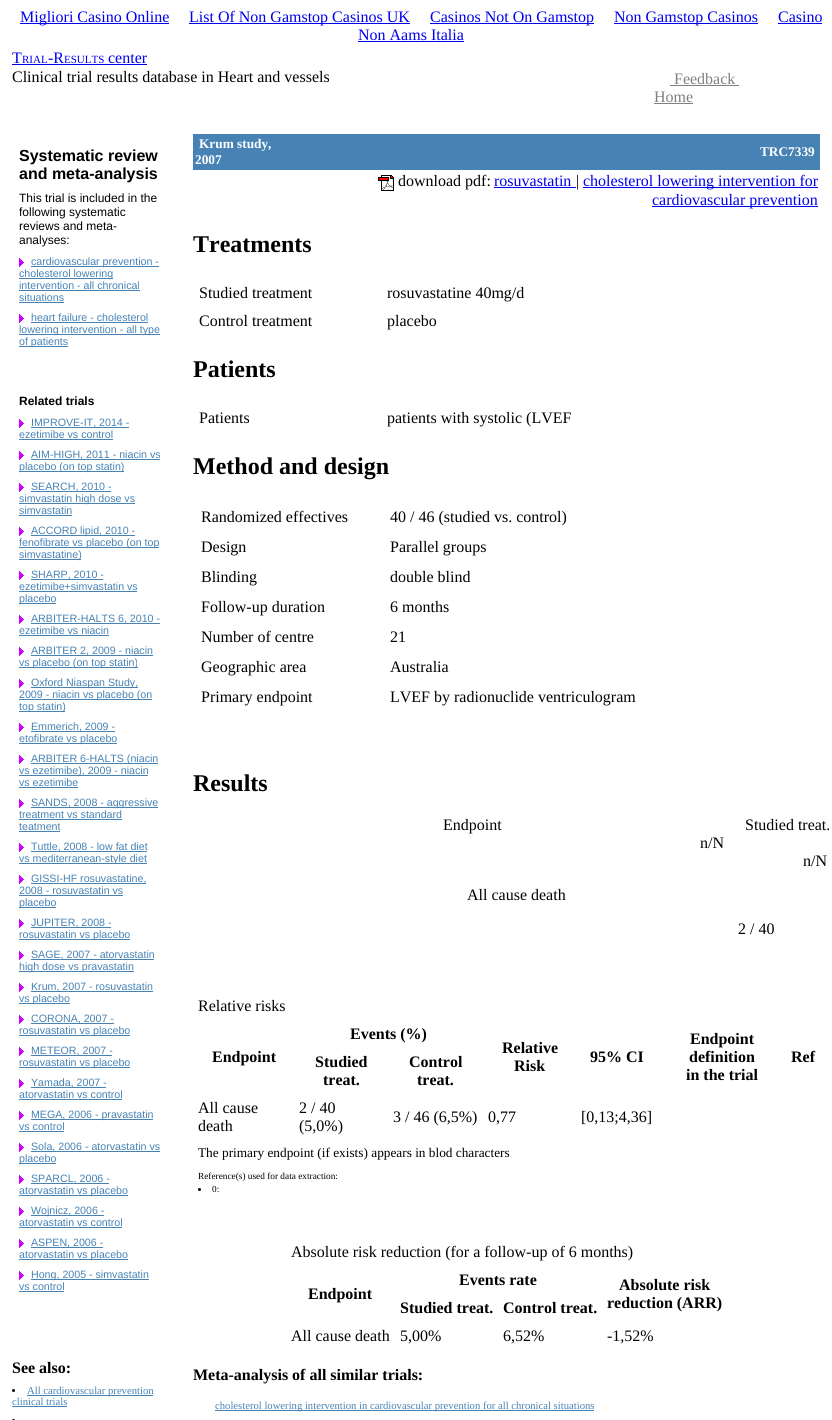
#include <cairo.h>
#include <math.h>
#include <stddef.h>

typedef struct { double x, y; const char *s; } line_t;

static void ink(cairo_t *ctx, unsigned color) {
    cairo_set_source_rgb(ctx, (color >> 16) / 255.0, (color >> 8 & 255) / 255.0, (color & 255) / 255.0);
}

static void paste(cairo_t *ctx, const char *path, double x, double y, double w, double h) {
    cairo_surface_t *image = cairo_image_surface_create_from_png(path);
    cairo_save(ctx);
    cairo_set_source_surface(ctx, image, x, y);
    cairo_rectangle(ctx, x, y, w, h);
    cairo_fill(ctx);
    cairo_restore(ctx);
    cairo_surface_destroy(image);
}

int main(void) {
    cairo_surface_t *surface = cairo_image_surface_create(CAIRO_FORMAT_RGB24, 832, 1420);
    cairo_t *ctx = cairo_create(surface);
    cairo_font_options_t *options = cairo_font_options_create();
    cairo_font_options_set_hint_metrics(options, CAIRO_HINT_METRICS_OFF);
    cairo_font_options_set_hint_style(options, CAIRO_HINT_STYLE_NONE);
    cairo_set_font_options(ctx, options);
    cairo_set_miter_limit(ctx, 4);
    ink(ctx, 0xFFFFFF);
    cairo_paint(ctx);
    ink(ctx, 0x0000EE);
    cairo_rectangle(ctx, 20, 23, 149, 1);
    cairo_fill(ctx);
    cairo_select_font_face(ctx, "Liberation Serif", CAIRO_FONT_SLANT_NORMAL, CAIRO_FONT_WEIGHT_NORMAL);
    cairo_set_font_size(ctx, 16);
    cairo_move_to(ctx, 20, 22);
    cairo_show_text(ctx, "Migliori Casino Online");
    cairo_rectangle(ctx, 189, 23, 221, 1);
    cairo_fill(ctx);
    cairo_move_to(ctx, 189, 22);
    cairo_show_text(ctx, "List Of Non Gamstop Casinos UK");
    cairo_rectangle(ctx, 430, 23, 164, 1);
    cairo_fill(ctx);
    cairo_move_to(ctx, 430, 22);
    cairo_show_text(ctx, "Casinos Not On Gamstop");
    cairo_rectangle(ctx, 614, 23, 144, 1);
    cairo_fill(ctx);
    cairo_move_to(ctx, 614, 22);
    cairo_show_text(ctx, "Non Gamstop Casinos");
    cairo_move_to(ctx, 778, 22);
    cairo_show_text(ctx, "Casino");
    cairo_rectangle(ctx, 778, 23, 44, 1);
    cairo_fill(ctx);
    cairo_move_to(ctx, 358, 40);
    cairo_show_text(ctx, "Non Aams Italia");
    cairo_rectangle(ctx, 358, 41, 106, 1);
    cairo_fill(ctx);
    cairo_move_to(ctx, 12, 63);
    cairo_show_text(ctx, "T");
    cairo_set_font_size(ctx, 11);
    cairo_move_to(ctx, 22, 63);
    cairo_show_text(ctx, "RIAL");
    cairo_set_font_size(ctx, 16);
    cairo_move_to(ctx, 48, 63);
    cairo_show_text(ctx, "-R");
    cairo_set_font_size(ctx, 11);
    cairo_move_to(ctx, 64, 63);
    cairo_show_text(ctx, "ESULTS");
    cairo_rectangle(ctx, 12, 64, 135, 1);
    cairo_fill(ctx);
    cairo_set_font_size(ctx, 16);
    cairo_move_to(ctx, 108, 63);
    cairo_show_text(ctx, "center");
    ink(ctx, 0x000000);
    cairo_move_to(ctx, 12, 82);
    cairo_show_text(ctx, "Clinical trial results database in Heart and vessels");
    ink(ctx, 0x808080);
    cairo_move_to(ctx, 674, 84);
    cairo_show_text(ctx, "Feedback");
    cairo_rectangle(ctx, 670, 85, 69, 1);
    cairo_fill(ctx);
    cairo_move_to(ctx, 654, 102);
    cairo_show_text(ctx, "Home");
    cairo_rectangle(ctx, 654, 103, 39, 1);
    cairo_fill(ctx);
    cairo_select_font_face(ctx, "Liberation Sans", CAIRO_FONT_SLANT_NORMAL, CAIRO_FONT_WEIGHT_BOLD);
    ink(ctx, 0x000000);
    cairo_move_to(ctx, 19, 161);
    cairo_show_text(ctx, "Systematic review");
    cairo_move_to(ctx, 19, 179);
    cairo_show_text(ctx, "and meta-analysis");
    cairo_select_font_face(ctx, "Liberation Sans", CAIRO_FONT_SLANT_NORMAL, CAIRO_FONT_WEIGHT_NORMAL);
    cairo_set_font_size(ctx, 12);
    {
        static const line_t items[] = {
            {19, 202, "This trial is included in the"},
            {19, 216, "following systematic"},
            {19, 230, "reviews and meta-"},
            {19, 244, "analyses:"},
        };
        for (size_t i = 0; i < sizeof items / sizeof *items; i++) {
            cairo_move_to(ctx, items[i].x, items[i].y);
            cairo_show_text(ctx, items[i].s);
        }
    }
    paste(ctx, "media/1.png", 19, 258, 5, 9);
    ink(ctx, 0x4682B4);
    cairo_rectangle(ctx, 31, 266, 128, 1);
    cairo_fill(ctx);
    cairo_set_font_size(ctx, 10.65);
    cairo_move_to(ctx, 31, 265);
    cairo_show_text(ctx, "cardiovascular prevention -");
    cairo_rectangle(ctx, 19, 278, 94, 1);
    cairo_fill(ctx);
    cairo_move_to(ctx, 19, 277);
    cairo_show_text(ctx, "cholesterol lowering");
    cairo_move_to(ctx, 19, 289);
    cairo_show_text(ctx, "intervention - all chronical");
    cairo_rectangle(ctx, 19, 290, 121, 1);
    cairo_fill(ctx);
    cairo_move_to(ctx, 19, 301);
    cairo_show_text(ctx, "situations");
    cairo_rectangle(ctx, 19, 302, 45, 1);
    cairo_fill(ctx);
    paste(ctx, "media/1.png", 19, 314, 5, 9);
    cairo_move_to(ctx, 31, 321);
    cairo_show_text(ctx, "heart failure - cholesterol");
    cairo_rectangle(ctx, 31, 322, 117, 1);
    cairo_fill(ctx);
    cairo_rectangle(ctx, 19, 334, 141, 1);
    cairo_fill(ctx);
    cairo_move_to(ctx, 19, 333);
    cairo_show_text(ctx, "lowering intervention - all type");
    cairo_rectangle(ctx, 19, 346, 49, 1);
    cairo_fill(ctx);
    cairo_move_to(ctx, 19, 345);
    cairo_show_text(ctx, "of patients");
    cairo_select_font_face(ctx, "Liberation Sans", CAIRO_FONT_SLANT_NORMAL, CAIRO_FONT_WEIGHT_BOLD);
    cairo_set_font_size(ctx, 12);
    ink(ctx, 0x000000);
    cairo_move_to(ctx, 19, 405);
    cairo_show_text(ctx, "Related trials");
    paste(ctx, "media/1.png", 19, 419, 5, 9);
    ink(ctx, 0x4682B4);
    cairo_rectangle(ctx, 31, 427, 98, 1);
    cairo_fill(ctx);
    cairo_select_font_face(ctx, "Liberation Sans", CAIRO_FONT_SLANT_NORMAL, CAIRO_FONT_WEIGHT_NORMAL);
    cairo_set_font_size(ctx, 10.65);
    cairo_move_to(ctx, 31, 426);
    cairo_show_text(ctx, "IMPROVE-IT, 2014 -");
    cairo_move_to(ctx, 19, 438);
    cairo_show_text(ctx, "ezetimibe vs control");
    cairo_rectangle(ctx, 19, 439, 94, 1);
    cairo_fill(ctx);
    paste(ctx, "media/1.png", 19, 451, 5, 9);
    cairo_rectangle(ctx, 31, 459, 129, 1);
    cairo_fill(ctx);
    cairo_move_to(ctx, 31, 458);
    cairo_show_text(ctx, "AIM-HIGH, 2011 - niacin vs");
    cairo_rectangle(ctx, 19, 471, 105, 1);
    cairo_fill(ctx);
    cairo_move_to(ctx, 19, 470);
    cairo_show_text(ctx, "placebo (on top statin)");
    paste(ctx, "media/1.png", 19, 483, 5, 9);
    cairo_rectangle(ctx, 31, 491, 80, 1);
    cairo_fill(ctx);
    cairo_move_to(ctx, 31, 490);
    cairo_show_text(ctx, "SEARCH, 2010 -");
    cairo_rectangle(ctx, 19, 503, 116, 1);
    cairo_fill(ctx);
    cairo_move_to(ctx, 19, 502);
    cairo_show_text(ctx, "simvastatin high dose vs");
    cairo_move_to(ctx, 19, 514);
    cairo_show_text(ctx, "simvastatin");
    cairo_rectangle(ctx, 19, 515, 53, 1);
    cairo_fill(ctx);
    paste(ctx, "media/1.png", 19, 527, 5, 9);
    cairo_rectangle(ctx, 31, 535, 104, 1);
    cairo_fill(ctx);
    cairo_move_to(ctx, 31, 534);
    cairo_show_text(ctx, "ACCORD lipid, 2010 -");
    cairo_rectangle(ctx, 19, 547, 140, 1);
    cairo_fill(ctx);
    cairo_move_to(ctx, 19, 546);
    cairo_show_text(ctx, "fenofibrate vs placebo (on top");
    cairo_rectangle(ctx, 19, 559, 62, 1);
    cairo_fill(ctx);
    cairo_move_to(ctx, 19, 558);
    cairo_show_text(ctx, "simvastatine)");
    paste(ctx, "media/1.png", 19, 571, 5, 9);
    cairo_rectangle(ctx, 31, 579, 72, 1);
    cairo_fill(ctx);
    cairo_move_to(ctx, 31, 578);
    cairo_show_text(ctx, "SHARP, 2010 -");
    cairo_move_to(ctx, 19, 590);
    cairo_show_text(ctx, "ezetimibe+simvastatin vs");
    cairo_rectangle(ctx, 19, 591, 118, 1);
    cairo_fill(ctx);
    cairo_rectangle(ctx, 19, 603, 37, 1);
    cairo_fill(ctx);
    cairo_move_to(ctx, 19, 602);
    cairo_show_text(ctx, "placebo");
    paste(ctx, "media/1.png", 19, 615, 5, 9);
    cairo_rectangle(ctx, 31, 623, 129, 1);
    cairo_fill(ctx);
    cairo_move_to(ctx, 31, 622);
    cairo_show_text(ctx, "ARBITER-HALTS 6, 2010 -");
    cairo_move_to(ctx, 19, 634);
    cairo_show_text(ctx, "ezetimibe vs niacin");
    cairo_rectangle(ctx, 19, 635, 90, 1);
    cairo_fill(ctx);
    paste(ctx, "media/1.png", 19, 647, 5, 9);
    cairo_rectangle(ctx, 31, 655, 122, 1);
    cairo_fill(ctx);
    cairo_move_to(ctx, 31, 654);
    cairo_show_text(ctx, "ARBITER 2, 2009 - niacin");
    cairo_rectangle(ctx, 19, 667, 119, 1);
    cairo_fill(ctx);
    cairo_move_to(ctx, 19, 666);
    cairo_show_text(ctx, "vs placebo (on top statin)");
    paste(ctx, "media/1.png", 19, 679, 5, 9);
    cairo_rectangle(ctx, 31, 687, 107, 1);
    cairo_fill(ctx);
    cairo_move_to(ctx, 31, 686);
    cairo_show_text(ctx, "Oxford Niaspan Study,");
    cairo_rectangle(ctx, 19, 699, 133, 1);
    cairo_fill(ctx);
    cairo_move_to(ctx, 19, 698);
    cairo_show_text(ctx, "2009 - niacin vs placebo (on");
    cairo_rectangle(ctx, 19, 711, 46, 1);
    cairo_fill(ctx);
    cairo_move_to(ctx, 19, 710);
    cairo_show_text(ctx, "top statin)");
    paste(ctx, "media/1.png", 19, 723, 5, 9);
    cairo_rectangle(ctx, 31, 731, 84, 1);
    cairo_fill(ctx);
    cairo_move_to(ctx, 31, 730);
    cairo_show_text(ctx, "Emmerich, 2009 -");
    cairo_rectangle(ctx, 19, 743, 98, 1);
    cairo_fill(ctx);
    cairo_move_to(ctx, 19, 742);
    cairo_show_text(ctx, "etofibrate vs placebo");
    paste(ctx, "media/1.png", 19, 755, 5, 9);
    cairo_rectangle(ctx, 31, 763, 127, 1);
    cairo_fill(ctx);
    cairo_move_to(ctx, 31, 762);
    cairo_show_text(ctx, "ARBITER 6-HALTS (niacin");
    cairo_rectangle(ctx, 19, 775, 129, 1);
    cairo_fill(ctx);
    cairo_move_to(ctx, 19, 774);
    cairo_show_text(ctx, "vs ezetimibe), 2009 - niacin");
    cairo_move_to(ctx, 19, 786);
    cairo_show_text(ctx, "vs ezetimibe");
    cairo_rectangle(ctx, 19, 787, 59, 1);
    cairo_fill(ctx);
    paste(ctx, "media/1.png", 19, 799, 5, 9);
    cairo_rectangle(ctx, 31, 807, 127, 1);
    cairo_fill(ctx);
    cairo_move_to(ctx, 31, 806);
    cairo_show_text(ctx, "SANDS, 2008 - aggressive");
    cairo_move_to(ctx, 19, 818);
    cairo_show_text(ctx, "treatment vs standard");
    cairo_rectangle(ctx, 19, 819, 103, 1);
    cairo_fill(ctx);
    cairo_move_to(ctx, 19, 830);
    cairo_show_text(ctx, "teatment");
    cairo_rectangle(ctx, 19, 831, 41, 1);
    cairo_fill(ctx);
    paste(ctx, "media/1.png", 19, 843, 5, 9);
    cairo_rectangle(ctx, 31, 851, 116, 1);
    cairo_fill(ctx);
    cairo_move_to(ctx, 31, 850);
    cairo_show_text(ctx, "Tuttle, 2008 - low fat diet");
    cairo_rectangle(ctx, 19, 863, 128, 1);
    cairo_fill(ctx);
    cairo_move_to(ctx, 19, 862);
    cairo_show_text(ctx, "vs mediterranean-style diet");
    paste(ctx, "media/1.png", 19, 875, 5, 9);
    cairo_rectangle(ctx, 31, 883, 115, 1);
    cairo_fill(ctx);
    cairo_move_to(ctx, 31, 882);
    cairo_show_text(ctx, "GISSI-HF rosuvastatine,");
    cairo_move_to(ctx, 19, 894);
    cairo_show_text(ctx, "2008 - rosuvastatin vs");
    cairo_rectangle(ctx, 19, 895, 104, 1);
    cairo_fill(ctx);
    cairo_rectangle(ctx, 19, 907, 37, 1);
    cairo_fill(ctx);
    cairo_move_to(ctx, 19, 906);
    cairo_show_text(ctx, "placebo");
    paste(ctx, "media/1.png", 19, 919, 5, 9);
    cairo_rectangle(ctx, 31, 927, 80, 1);
    cairo_fill(ctx);
    cairo_move_to(ctx, 31, 926);
    cairo_show_text(ctx, "JUPITER, 2008 -");
    cairo_rectangle(ctx, 19, 939, 111, 1);
    cairo_fill(ctx);
    cairo_move_to(ctx, 19, 938);
    cairo_show_text(ctx, "rosuvastatin vs placebo");
    paste(ctx, "media/1.png", 19, 951, 5, 9);
    cairo_rectangle(ctx, 31, 959, 123, 1);
    cairo_fill(ctx);
    cairo_move_to(ctx, 31, 958);
    cairo_show_text(ctx, "SAGE, 2007 - atorvastatin");
    cairo_rectangle(ctx, 19, 971, 115, 1);
    cairo_fill(ctx);
    cairo_move_to(ctx, 19, 970);
    cairo_show_text(ctx, "high dose vs pravastatin");
    paste(ctx, "media/1.png", 19, 983, 5, 9);
    cairo_rectangle(ctx, 31, 991, 122, 1);
    cairo_fill(ctx);
    cairo_move_to(ctx, 31, 990);
    cairo_show_text(ctx, "Krum, 2007 - rosuvastatin");
    cairo_rectangle(ctx, 19, 1003, 51, 1);
    cairo_fill(ctx);
    cairo_move_to(ctx, 19, 1002);
    cairo_show_text(ctx, "vs placebo");
    paste(ctx, "media/1.png", 19, 1015, 5, 9);
    cairo_rectangle(ctx, 31, 1023, 83, 1);
    cairo_fill(ctx);
    cairo_move_to(ctx, 31, 1022);
    cairo_show_text(ctx, "CORONA, 2007 -");
    cairo_rectangle(ctx, 19, 1035, 111, 1);
    cairo_fill(ctx);
    cairo_move_to(ctx, 19, 1034);
    cairo_show_text(ctx, "rosuvastatin vs placebo");
    paste(ctx, "media/1.png", 19, 1047, 5, 9);
    cairo_rectangle(ctx, 31, 1055, 81, 1);
    cairo_fill(ctx);
    cairo_move_to(ctx, 31, 1054);
    cairo_show_text(ctx, "METEOR, 2007 -");
    cairo_rectangle(ctx, 19, 1067, 111, 1);
    cairo_fill(ctx);
    cairo_move_to(ctx, 19, 1066);
    cairo_show_text(ctx, "rosuvastatin vs placebo");
    paste(ctx, "media/1.png", 19, 1079, 5, 9);
    cairo_rectangle(ctx, 31, 1087, 75, 1);
    cairo_fill(ctx);
    cairo_move_to(ctx, 31, 1086);
    cairo_show_text(ctx, "Yamada, 2007 -");
    cairo_move_to(ctx, 19, 1098);
    cairo_show_text(ctx, "atorvastatin vs control");
    cairo_rectangle(ctx, 19, 1099, 103, 1);
    cairo_fill(ctx);
    paste(ctx, "media/1.png", 19, 1111, 5, 9);
    cairo_rectangle(ctx, 31, 1119, 122, 1);
    cairo_fill(ctx);
    cairo_move_to(ctx, 31, 1118);
    cairo_show_text(ctx, "MEGA, 2006 - pravastatin");
    cairo_move_to(ctx, 19, 1130);
    cairo_show_text(ctx, "vs control");
    cairo_rectangle(ctx, 19, 1131, 45, 1);
    cairo_fill(ctx);
    paste(ctx, "media/1.png", 19, 1143, 5, 9);
    cairo_rectangle(ctx, 31, 1151, 129, 1);
    cairo_fill(ctx);
    cairo_move_to(ctx, 31, 1150);
    cairo_show_text(ctx, "Sola, 2006 - atorvastatin vs");
    cairo_rectangle(ctx, 19, 1163, 37, 1);
    cairo_fill(ctx);
    cairo_move_to(ctx, 19, 1162);
    cairo_show_text(ctx, "placebo");
    paste(ctx, "media/1.png", 19, 1175, 5, 9);
    cairo_rectangle(ctx, 31, 1183, 78, 1);
    cairo_fill(ctx);
    cairo_move_to(ctx, 31, 1182);
    cairo_show_text(ctx, "SPARCL, 2006 -");
    cairo_rectangle(ctx, 19, 1195, 109, 1);
    cairo_fill(ctx);
    cairo_move_to(ctx, 19, 1194);
    cairo_show_text(ctx, "atorvastatin vs placebo");
    paste(ctx, "media/1.png", 19, 1207, 5, 9);
    cairo_rectangle(ctx, 31, 1215, 73, 1);
    cairo_fill(ctx);
    cairo_move_to(ctx, 31, 1214);
    cairo_show_text(ctx, "Wojnicz, 2006 -");
    cairo_move_to(ctx, 19, 1226);
    cairo_show_text(ctx, "atorvastatin vs control");
    cairo_rectangle(ctx, 19, 1227, 103, 1);
    cairo_fill(ctx);
    paste(ctx, "media/1.png", 19, 1239, 5, 9);
    cairo_rectangle(ctx, 31, 1247, 72, 1);
    cairo_fill(ctx);
    cairo_move_to(ctx, 31, 1246);
    cairo_show_text(ctx, "ASPEN, 2006 -");
    cairo_rectangle(ctx, 19, 1259, 109, 1);
    cairo_fill(ctx);
    cairo_move_to(ctx, 19, 1258);
    cairo_show_text(ctx, "atorvastatin vs placebo");
    paste(ctx, "media/1.png", 19, 1271, 5, 9);
    cairo_rectangle(ctx, 31, 1279, 118, 1);
    cairo_fill(ctx);
    cairo_move_to(ctx, 31, 1278);
    cairo_show_text(ctx, "Hong, 2005 - simvastatin");
    cairo_move_to(ctx, 19, 1290);
    cairo_show_text(ctx, "vs control");
    cairo_rectangle(ctx, 19, 1291, 45, 1);
    cairo_fill(ctx);
    cairo_select_font_face(ctx, "Liberation Serif", CAIRO_FONT_SLANT_NORMAL, CAIRO_FONT_WEIGHT_BOLD);
    cairo_set_font_size(ctx, 16);
    ink(ctx, 0x000000);
    cairo_move_to(ctx, 12, 1373);
    cairo_show_text(ctx, "See also:");
    cairo_new_path(ctx);
    cairo_arc(ctx, 13.5, 1390.5, 1.5, 0, 2 * M_PI);
    cairo_fill(ctx);
    ink(ctx, 0x4682B4);
    cairo_rectangle(ctx, 27, 1395, 126, 1);
    cairo_fill(ctx);
    cairo_select_font_face(ctx, "Liberation Serif", CAIRO_FONT_SLANT_NORMAL, CAIRO_FONT_WEIGHT_NORMAL);
    cairo_set_font_size(ctx, 10.65);
    cairo_move_to(ctx, 27, 1394);
    cairo_show_text(ctx, "All cardiovascular prevention");
    cairo_move_to(ctx, 12, 1405);
    cairo_show_text(ctx, "clinical trials");
    cairo_rectangle(ctx, 12, 1406, 55, 1);
    cairo_fill(ctx);
    ink(ctx, 0x000000);
    cairo_arc(ctx, 13.5, 1420.5, 1.5, 0, 2 * M_PI);
    cairo_fill(ctx);
    ink(ctx, 0x4682B4);
    cairo_rectangle(ctx, 193, 134, 627, 36);
    cairo_fill(ctx);
    cairo_select_font_face(ctx, "Liberation Serif", CAIRO_FONT_SLANT_NORMAL, CAIRO_FONT_WEIGHT_BOLD);
    cairo_set_font_size(ctx, 13.3);
    ink(ctx, 0xFFFFFF);
    {
        static const line_t items[] = {
            {199, 148, "Krum study,"},
            {195, 164, "2007"},
            {760, 156, "TRC7339"},
        };
        for (size_t i = 0; i < sizeof items / sizeof *items; i++) {
            cairo_move_to(ctx, items[i].x, items[i].y);
            cairo_show_text(ctx, items[i].s);
        }
    }
    paste(ctx, "media/2.png", 378, 175, 16, 16);
    cairo_select_font_face(ctx, "Liberation Serif", CAIRO_FONT_SLANT_NORMAL, CAIRO_FONT_WEIGHT_NORMAL);
    cairo_set_font_size(ctx, 16);
    ink(ctx, 0x000000);
    cairo_move_to(ctx, 398, 186);
    cairo_show_text(ctx, "download pdf:");
    ink(ctx, 0x0000EE);
    cairo_move_to(ctx, 494, 186);
    cairo_show_text(ctx, "rosuvastatin");
    ink(ctx, 0x000000);
    cairo_move_to(ctx, 576, 186);
    cairo_show_text(ctx, "|");
    ink(ctx, 0x0000EE);
    cairo_rectangle(ctx, 494, 187, 82, 1);
    cairo_fill(ctx);
    cairo_rectangle(ctx, 583, 187, 235, 1);
    cairo_fill(ctx);
    cairo_move_to(ctx, 583, 186);
    cairo_show_text(ctx, "cholesterol lowering intervention for");
    cairo_rectangle(ctx, 652, 206, 166, 1);
    cairo_fill(ctx);
    cairo_move_to(ctx, 652, 205);
    cairo_show_text(ctx, "cardiovascular prevention");
    cairo_select_font_face(ctx, "Liberation Serif", CAIRO_FONT_SLANT_NORMAL, CAIRO_FONT_WEIGHT_BOLD);
    cairo_set_font_size(ctx, 24);
    ink(ctx, 0x000000);
    cairo_move_to(ctx, 193, 252);
    cairo_show_text(ctx, "Treatments");
    cairo_select_font_face(ctx, "Liberation Serif", CAIRO_FONT_SLANT_NORMAL, CAIRO_FONT_WEIGHT_NORMAL);
    cairo_set_font_size(ctx, 16);
    {
        static const line_t items[] = {
            {199, 298, "Studied treatment"},
            {387, 298, "rosuvastatine 40mg/d"},
            {199, 326, "Control treatment"},
            {387, 326, "placebo"},
        };
        for (size_t i = 0; i < sizeof items / sizeof *items; i++) {
            cairo_move_to(ctx, items[i].x, items[i].y);
            cairo_show_text(ctx, items[i].s);
        }
    }
    cairo_select_font_face(ctx, "Liberation Serif", CAIRO_FONT_SLANT_NORMAL, CAIRO_FONT_WEIGHT_BOLD);
    cairo_set_font_size(ctx, 24);
    cairo_move_to(ctx, 193, 377);
    cairo_show_text(ctx, "Patients");
    cairo_select_font_face(ctx, "Liberation Serif", CAIRO_FONT_SLANT_NORMAL, CAIRO_FONT_WEIGHT_NORMAL);
    cairo_set_font_size(ctx, 16);
    cairo_move_to(ctx, 199, 423);
    cairo_show_text(ctx, "Patients");
    cairo_move_to(ctx, 387, 423);
    cairo_show_text(ctx, "patients with systolic (LVEF");
    cairo_select_font_face(ctx, "Liberation Serif", CAIRO_FONT_SLANT_NORMAL, CAIRO_FONT_WEIGHT_BOLD);
    cairo_set_font_size(ctx, 24);
    cairo_move_to(ctx, 193, 474);
    cairo_show_text(ctx, "Method and design");
    cairo_select_font_face(ctx, "Liberation Serif", CAIRO_FONT_SLANT_NORMAL, CAIRO_FONT_WEIGHT_NORMAL);
    cairo_set_font_size(ctx, 16);
    {
        static const line_t items[] = {
            {201, 522, "Randomized effectives"},
            {390, 522, "40 / 46 (studied vs. control)"},
            {201, 552, "Design"},
            {390, 552, "Parallel groups"},
            {201, 582, "Blinding"},
            {390, 582, "double blind"},
            {201, 612, "Follow-up duration"},
            {390, 612, "6 months"},
            {201, 642, "Number of centre"},
            {390, 642, "21"},
            {201, 672, "Geographic area"},
            {390, 672, "Australia"},
            {201, 702, "Primary endpoint"},
            {390, 702, "LVEF by radionuclide ventriculogram"},
        };
        for (size_t i = 0; i < sizeof items / sizeof *items; i++) {
            cairo_move_to(ctx, items[i].x, items[i].y);
            cairo_show_text(ctx, items[i].s);
        }
    }
    cairo_select_font_face(ctx, "Liberation Serif", CAIRO_FONT_SLANT_NORMAL, CAIRO_FONT_WEIGHT_BOLD);
    cairo_set_font_size(ctx, 24);
    cairo_move_to(ctx, 193, 791);
    cairo_show_text(ctx, "Results");
    cairo_select_font_face(ctx, "Liberation Serif", CAIRO_FONT_SLANT_NORMAL, CAIRO_FONT_WEIGHT_NORMAL);
    cairo_set_font_size(ctx, 16);
    {
        static const line_t items[] = {
            {443, 830, "Endpoint"},
            {745, 830, "Studied treat."},
            {700, 848, "n/N"},
            {803, 866, "n/N"},
            {467, 900, "All cause death"},
            {738, 934, "2 / 40"},
            {198, 1011, "Relative risks"},
        };
        for (size_t i = 0; i < sizeof items / sizeof *items; i++) {
            cairo_move_to(ctx, items[i].x, items[i].y);
            cairo_show_text(ctx, items[i].s);
        }
    }
    cairo_select_font_face(ctx, "Liberation Serif", CAIRO_FONT_SLANT_NORMAL, CAIRO_FONT_WEIGHT_BOLD);
    {
        static const line_t items[] = {
            {212, 1062, "Endpoint"},
            {350, 1039, "Events (%)"},
            {502, 1053, "Relative"},
            {514, 1071, "Risk"},
            {590, 1062, "95% CI"},
            {690, 1044, "Endpoint"},
            {689, 1062, "definition"},
            {686, 1080, "in the trial"},
            {791, 1062, "Ref"},
            {315, 1067, "Studied"},
            {323, 1085, "treat."},
            {409, 1067, "Control"},
            {417, 1085, "treat."},
        };
        for (size_t i = 0; i < sizeof items / sizeof *items; i++) {
            cairo_move_to(ctx, items[i].x, items[i].y);
            cairo_show_text(ctx, items[i].s);
        }
    }
    cairo_select_font_face(ctx, "Liberation Serif", CAIRO_FONT_SLANT_NORMAL, CAIRO_FONT_WEIGHT_NORMAL);
    {
        static const line_t items[] = {
            {198, 1113, "All cause"},
            {198, 1131, "death"},
            {299, 1113, "2 / 40"},
            {299, 1131, "(5,0%)"},
            {393, 1122, "3 / 46 (6,5%)"},
            {488, 1122, "0,77"},
            {581, 1122, "[0,13;4,36]"},
        };
        for (size_t i = 0; i < sizeof items / sizeof *items; i++) {
            cairo_move_to(ctx, items[i].x, items[i].y);
            cairo_show_text(ctx, items[i].s);
        }
    }
    cairo_set_font_size(ctx, 13.3);
    cairo_move_to(ctx, 198, 1157);
    cairo_show_text(ctx, "The primary endpoint (if exists) appears in blod characters");
    cairo_set_font_size(ctx, 9.3);
    cairo_move_to(ctx, 198, 1179);
    cairo_show_text(ctx, "Reference(s) used for data extraction:");
    cairo_new_path(ctx);
    cairo_arc(ctx, 199.5, 1189.5, 1.5, 0, 2 * M_PI);
    cairo_fill(ctx);
    cairo_move_to(ctx, 212, 1192);
    cairo_show_text(ctx, "0:");
    cairo_set_font_size(ctx, 16);
    cairo_move_to(ctx, 291, 1257);
    cairo_show_text(ctx, "Absolute risk reduction (for a follow-up of 6 months)");
    cairo_select_font_face(ctx, "Liberation Serif", CAIRO_FONT_SLANT_NORMAL, CAIRO_FONT_WEIGHT_BOLD);
    {
        static const line_t items[] = {
            {308, 1299, "Endpoint"},
            {459, 1285, "Events rate"},
            {619, 1290, "Absolute risk"},
            {607, 1308, "reduction (ARR)"},
            {400, 1313, "Studied treat."},
            {503, 1313, "Control treat."},
        };
        for (size_t i = 0; i < sizeof items / sizeof *items; i++) {
            cairo_move_to(ctx, items[i].x, items[i].y);
            cairo_show_text(ctx, items[i].s);
        }
    }
    cairo_select_font_face(ctx, "Liberation Serif", CAIRO_FONT_SLANT_NORMAL, CAIRO_FONT_WEIGHT_NORMAL);
    {
        static const line_t items[] = {
            {291, 1341, "All cause death"},
            {400, 1341, "5,00%"},
            {503, 1341, "6,52%"},
            {607, 1341, "-1,52%"},
        };
        for (size_t i = 0; i < sizeof items / sizeof *items; i++) {
            cairo_move_to(ctx, items[i].x, items[i].y);
            cairo_show_text(ctx, items[i].s);
        }
    }
    cairo_select_font_face(ctx, "Liberation Serif", CAIRO_FONT_SLANT_NORMAL, CAIRO_FONT_WEIGHT_BOLD);
    cairo_move_to(ctx, 193, 1380);
    cairo_show_text(ctx, "Meta-analysis of all similar trials:");
    ink(ctx, 0x4682B4);
    cairo_rectangle(ctx, 215, 1410, 379, 1);
    cairo_fill(ctx);
    cairo_select_font_face(ctx, "Liberation Serif", CAIRO_FONT_SLANT_NORMAL, CAIRO_FONT_WEIGHT_NORMAL);
    cairo_set_font_size(ctx, 10.65);
    cairo_move_to(ctx, 215, 1409);
    cairo_show_text(ctx, "cholesterol lowering intervention in cardiovascular prevention for all chronical situations");
    cairo_surface_write_to_png(surface, "image.png");
    cairo_font_options_destroy(options);
    cairo_destroy(ctx);
    cairo_surface_destroy(surface);
    return 0;
}
